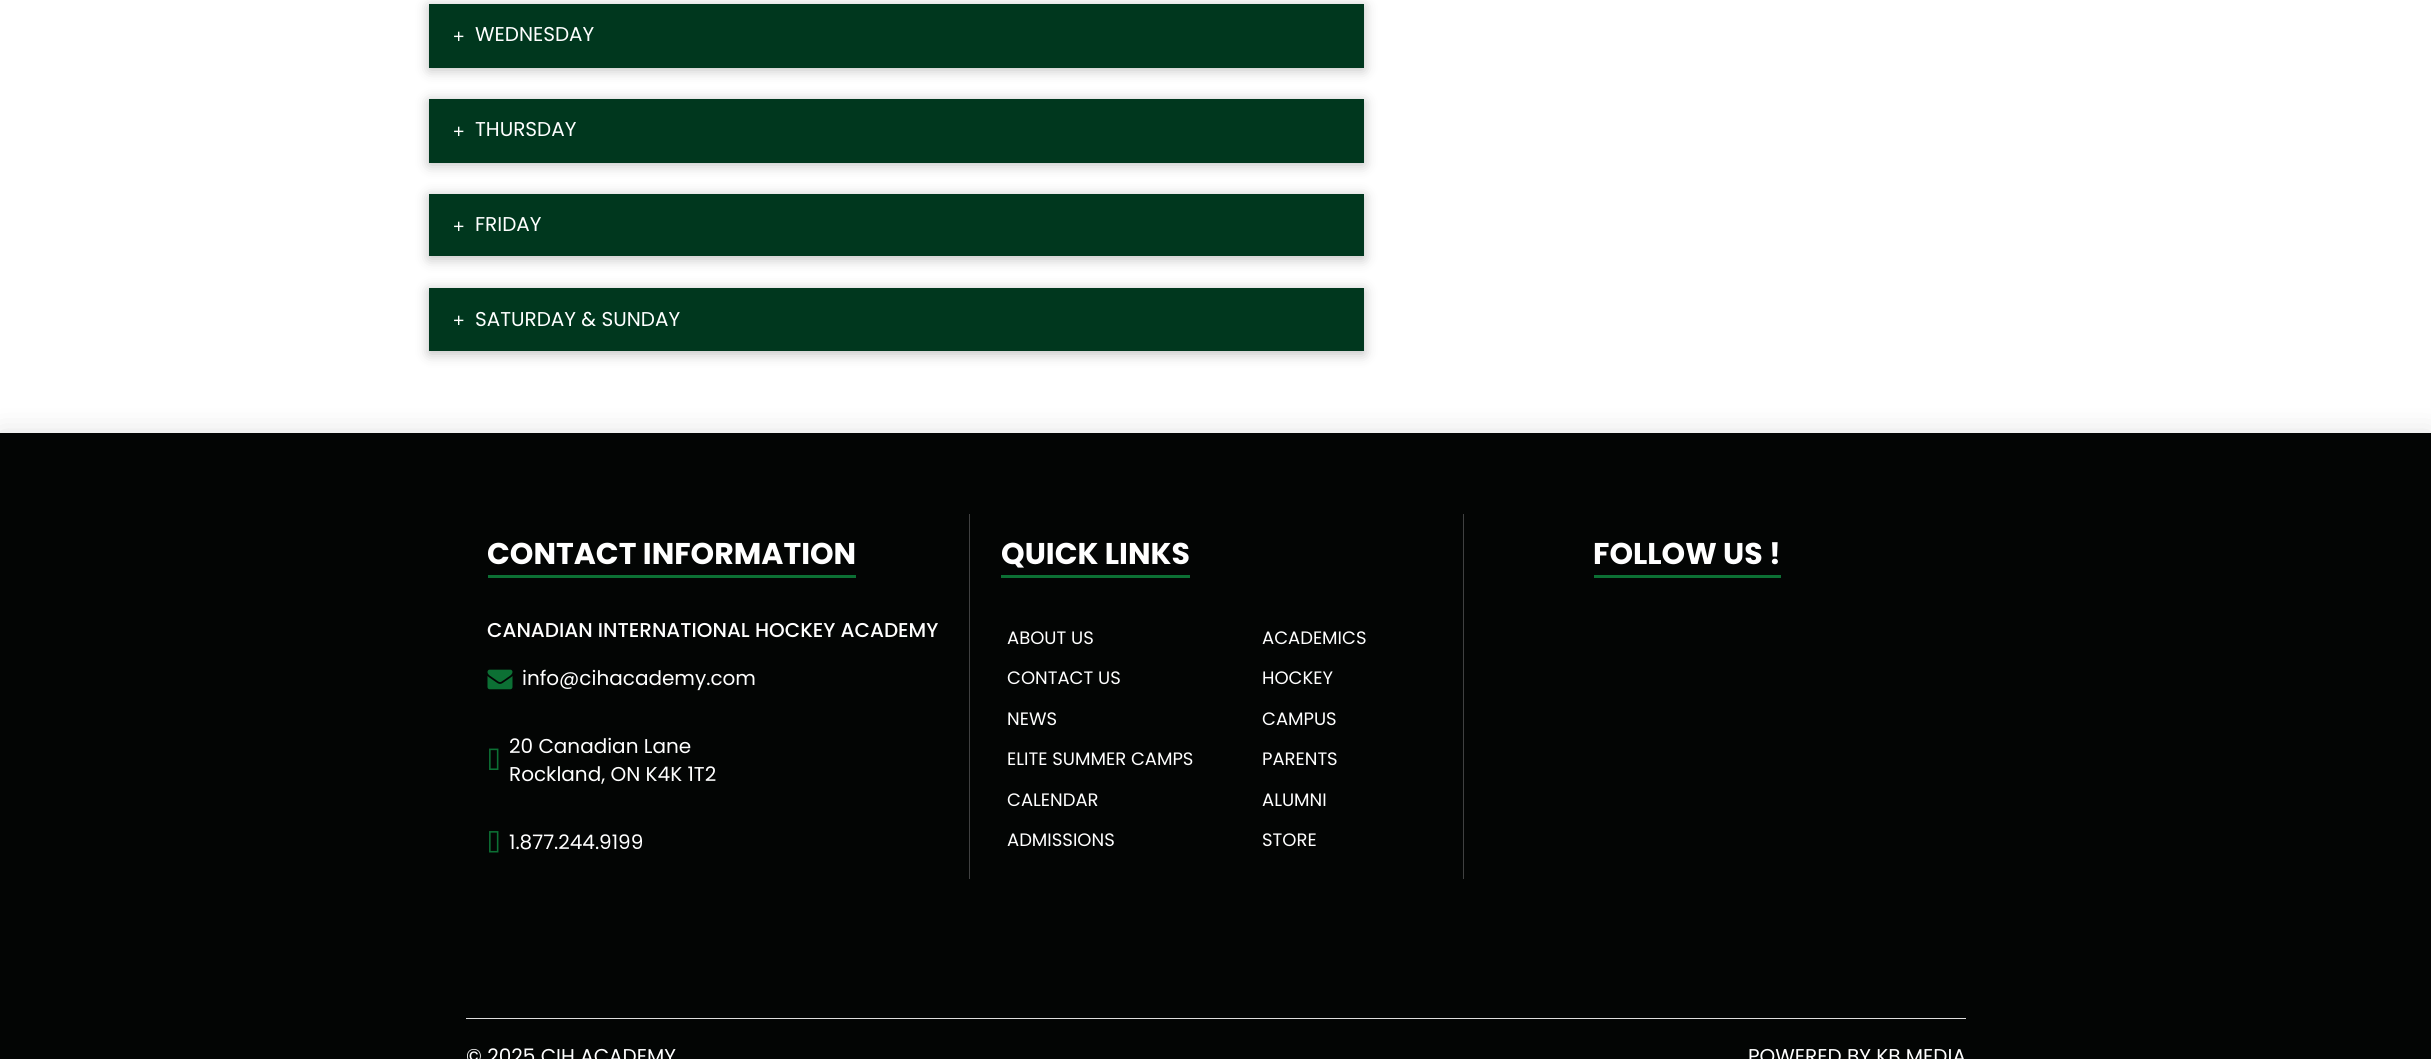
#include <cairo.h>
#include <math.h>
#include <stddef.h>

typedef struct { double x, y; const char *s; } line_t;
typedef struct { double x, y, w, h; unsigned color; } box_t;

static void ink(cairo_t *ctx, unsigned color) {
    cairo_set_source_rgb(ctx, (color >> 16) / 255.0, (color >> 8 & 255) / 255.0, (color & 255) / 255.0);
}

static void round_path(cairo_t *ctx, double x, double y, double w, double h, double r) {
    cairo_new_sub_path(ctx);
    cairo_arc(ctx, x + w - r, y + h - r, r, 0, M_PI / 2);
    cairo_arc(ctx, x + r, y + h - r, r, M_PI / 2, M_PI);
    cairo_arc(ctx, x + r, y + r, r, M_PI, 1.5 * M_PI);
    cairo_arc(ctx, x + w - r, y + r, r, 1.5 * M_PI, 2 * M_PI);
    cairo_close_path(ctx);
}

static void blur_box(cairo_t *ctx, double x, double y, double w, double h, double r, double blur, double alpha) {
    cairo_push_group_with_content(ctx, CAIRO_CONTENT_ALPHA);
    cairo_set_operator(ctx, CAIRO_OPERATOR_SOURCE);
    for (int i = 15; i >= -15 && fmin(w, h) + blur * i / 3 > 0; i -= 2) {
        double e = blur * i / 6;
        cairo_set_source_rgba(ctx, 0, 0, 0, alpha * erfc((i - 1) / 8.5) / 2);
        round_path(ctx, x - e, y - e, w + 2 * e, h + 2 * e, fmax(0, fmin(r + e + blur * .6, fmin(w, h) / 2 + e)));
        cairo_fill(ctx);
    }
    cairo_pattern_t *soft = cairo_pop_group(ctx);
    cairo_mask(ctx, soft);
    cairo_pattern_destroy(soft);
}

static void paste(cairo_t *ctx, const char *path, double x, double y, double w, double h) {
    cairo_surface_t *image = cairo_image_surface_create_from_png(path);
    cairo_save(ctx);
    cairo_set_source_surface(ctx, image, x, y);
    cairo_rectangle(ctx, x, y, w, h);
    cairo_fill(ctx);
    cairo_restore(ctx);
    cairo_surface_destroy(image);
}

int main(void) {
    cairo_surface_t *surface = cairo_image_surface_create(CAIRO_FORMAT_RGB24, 2431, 1059);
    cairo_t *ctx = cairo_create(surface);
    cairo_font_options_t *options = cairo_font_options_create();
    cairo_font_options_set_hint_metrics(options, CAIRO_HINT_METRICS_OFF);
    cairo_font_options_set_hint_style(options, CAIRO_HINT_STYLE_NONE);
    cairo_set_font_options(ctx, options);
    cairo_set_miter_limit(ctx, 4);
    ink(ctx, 0xFFFFFF);
    cairo_paint(ctx);
    ink(ctx, 0x000000);
    blur_box(ctx, 429, 6, 935, 64, 0, 6.5, 0.25);
    ink(ctx, 0x00371E);
    cairo_rectangle(ctx, 429, 4, 935, 64);
    cairo_fill(ctx);
    cairo_select_font_face(ctx, "Liberation Serif", CAIRO_FONT_SLANT_NORMAL, CAIRO_FONT_WEIGHT_BOLD);
    cairo_set_font_size(ctx, 20);
    ink(ctx, 0xFFFFFF);
    cairo_move_to(ctx, 453, 43);
    cairo_show_text(ctx, "+");
    cairo_select_font_face(ctx, "Poppins", CAIRO_FONT_SLANT_NORMAL, CAIRO_FONT_WEIGHT_NORMAL);
    cairo_move_to(ctx, 475, 41);
    cairo_show_text(ctx, "WEDNESDAY");
    ink(ctx, 0x000000);
    blur_box(ctx, 429, 101, 935, 64, 0, 6.5, 0.25);
    ink(ctx, 0x00371E);
    cairo_rectangle(ctx, 429, 99, 935, 64);
    cairo_fill(ctx);
    cairo_select_font_face(ctx, "Liberation Serif", CAIRO_FONT_SLANT_NORMAL, CAIRO_FONT_WEIGHT_BOLD);
    ink(ctx, 0xFFFFFF);
    cairo_move_to(ctx, 453, 138);
    cairo_show_text(ctx, "+");
    cairo_select_font_face(ctx, "Poppins", CAIRO_FONT_SLANT_NORMAL, CAIRO_FONT_WEIGHT_NORMAL);
    cairo_move_to(ctx, 475, 136);
    cairo_show_text(ctx, "THURSDAY");
    ink(ctx, 0x000000);
    blur_box(ctx, 429, 196, 935, 63, 0, 6.5, 0.25);
    ink(ctx, 0x00371E);
    cairo_rectangle(ctx, 429, 194, 935, 62);
    cairo_fill(ctx);
    cairo_select_font_face(ctx, "Liberation Serif", CAIRO_FONT_SLANT_NORMAL, CAIRO_FONT_WEIGHT_BOLD);
    ink(ctx, 0xFFFFFF);
    cairo_move_to(ctx, 453, 233);
    cairo_show_text(ctx, "+");
    cairo_select_font_face(ctx, "Poppins", CAIRO_FONT_SLANT_NORMAL, CAIRO_FONT_WEIGHT_NORMAL);
    cairo_move_to(ctx, 475, 231);
    cairo_show_text(ctx, "FRIDAY");
    ink(ctx, 0x000000);
    blur_box(ctx, 429, 290, 935, 64, 0, 6.5, 0.25);
    ink(ctx, 0x00371E);
    cairo_rectangle(ctx, 429, 288, 935, 63);
    cairo_fill(ctx);
    cairo_select_font_face(ctx, "Liberation Serif", CAIRO_FONT_SLANT_NORMAL, CAIRO_FONT_WEIGHT_BOLD);
    ink(ctx, 0xFFFFFF);
    cairo_move_to(ctx, 453, 327);
    cairo_show_text(ctx, "+");
    cairo_select_font_face(ctx, "Poppins", CAIRO_FONT_SLANT_NORMAL, CAIRO_FONT_WEIGHT_NORMAL);
    cairo_move_to(ctx, 475, 326);
    cairo_show_text(ctx, "SATURDAY & SUNDAY");
    ink(ctx, 0x000000);
    blur_box(ctx, 0, 436, 2431, 573, 0, 15.5, 0.15);
    ink(ctx, 0x030504);
    cairo_rectangle(ctx, 0, 433, 2431, 626);
    cairo_fill(ctx);
    ink(ctx, 0x0C7034);
    cairo_rectangle(ctx, 488, 575, 368, 3);
    cairo_fill(ctx);
    cairo_select_font_face(ctx, "Poppins", CAIRO_FONT_SLANT_NORMAL, CAIRO_FONT_WEIGHT_BOLD);
    cairo_set_font_size(ctx, 30);
    ink(ctx, 0xFFFFFF);
    cairo_move_to(ctx, 487, 564);
    cairo_show_text(ctx, "CONTACT INFORMATION");
    cairo_select_font_face(ctx, "Poppins Medium", CAIRO_FONT_SLANT_NORMAL, CAIRO_FONT_WEIGHT_NORMAL);
    cairo_set_font_size(ctx, 20);
    cairo_move_to(ctx, 487, 637);
    cairo_show_text(ctx, "CANADIAN INTERNATIONAL HOCKEY ACADEMY");
    paste(ctx, "media/1.png", 487, 669, 26, 21);
    cairo_select_font_face(ctx, "Poppins", CAIRO_FONT_SLANT_NORMAL, CAIRO_FONT_WEIGHT_NORMAL);
    cairo_move_to(ctx, 522, 685);
    cairo_show_text(ctx, "info@cihacademy.com");
    paste(ctx, "media/2.png", 489, 748, 10, 22);
    cairo_move_to(ctx, 509, 753);
    cairo_show_text(ctx, "20 Canadian Lane");
    cairo_move_to(ctx, 509, 781);
    cairo_show_text(ctx, "Rockland, ON K4K 1T2");
    paste(ctx, "media/3.png", 489, 831, 10, 22);
    cairo_move_to(ctx, 509, 849);
    cairo_show_text(ctx, "1.877.244.9199");
    {
        static const box_t items[] = {
            {1463, 514, 1, 365, 0x404141},
            {969, 514, 1, 365, 0x404141},
            {1001, 575, 189, 3, 0x0C7034},
        };
        for (size_t i = 0; i < sizeof items / sizeof *items; i++) {
            ink(ctx, items[i].color);
            cairo_rectangle(ctx, items[i].x, items[i].y, items[i].w, items[i].h);
            cairo_fill(ctx);
        }
    }
    cairo_select_font_face(ctx, "Poppins", CAIRO_FONT_SLANT_NORMAL, CAIRO_FONT_WEIGHT_BOLD);
    cairo_set_font_size(ctx, 30);
    ink(ctx, 0xFFFFFF);
    cairo_move_to(ctx, 1001, 564);
    cairo_show_text(ctx, "QUICK LINKS");
    cairo_select_font_face(ctx, "Poppins", CAIRO_FONT_SLANT_NORMAL, CAIRO_FONT_WEIGHT_NORMAL);
    cairo_set_font_size(ctx, 18);
    {
        static const line_t items[] = {
            {1007, 644, "ABOUT US"},
            {1007, 684, "CONTACT US"},
            {1007, 725, "NEWS"},
            {1007, 765, "ELITE SUMMER CAMPS"},
            {1007, 806, "CALENDAR"},
            {1007, 846, "ADMISSIONS"},
            {1262, 644, "ACADEMICS"},
            {1262, 684, "HOCKEY"},
            {1262, 725, "CAMPUS"},
            {1262, 765, "PARENTS"},
            {1262, 806, "ALUMNI"},
            {1262, 846, "STORE"},
        };
        for (size_t i = 0; i < sizeof items / sizeof *items; i++) {
            cairo_move_to(ctx, items[i].x, items[i].y);
            cairo_show_text(ctx, items[i].s);
        }
    }
    ink(ctx, 0x0C7034);
    cairo_rectangle(ctx, 1594, 575, 187, 3);
    cairo_fill(ctx);
    cairo_select_font_face(ctx, "Poppins", CAIRO_FONT_SLANT_NORMAL, CAIRO_FONT_WEIGHT_BOLD);
    cairo_set_font_size(ctx, 30);
    ink(ctx, 0xFFFFFF);
    cairo_move_to(ctx, 1593, 564);
    cairo_show_text(ctx, "FOLLOW US !");
    ink(ctx, 0xDEDEDE);
    cairo_rectangle(ctx, 466, 1018, 1500, 1);
    cairo_fill(ctx);
    cairo_select_font_face(ctx, "Poppins", CAIRO_FONT_SLANT_NORMAL, CAIRO_FONT_WEIGHT_NORMAL);
    cairo_set_font_size(ctx, 20);
    ink(ctx, 0xFFFFFF);
    cairo_move_to(ctx, 466, 1063);
    cairo_show_text(ctx, "© 2025 CIH ACADEMY");
    cairo_move_to(ctx, 1748, 1063);
    cairo_show_text(ctx, "POWERED BY KB MEDIA");
    cairo_surface_write_to_png(surface, "image.png");
    cairo_font_options_destroy(options);
    cairo_destroy(ctx);
    cairo_surface_destroy(surface);
    return 0;
}
